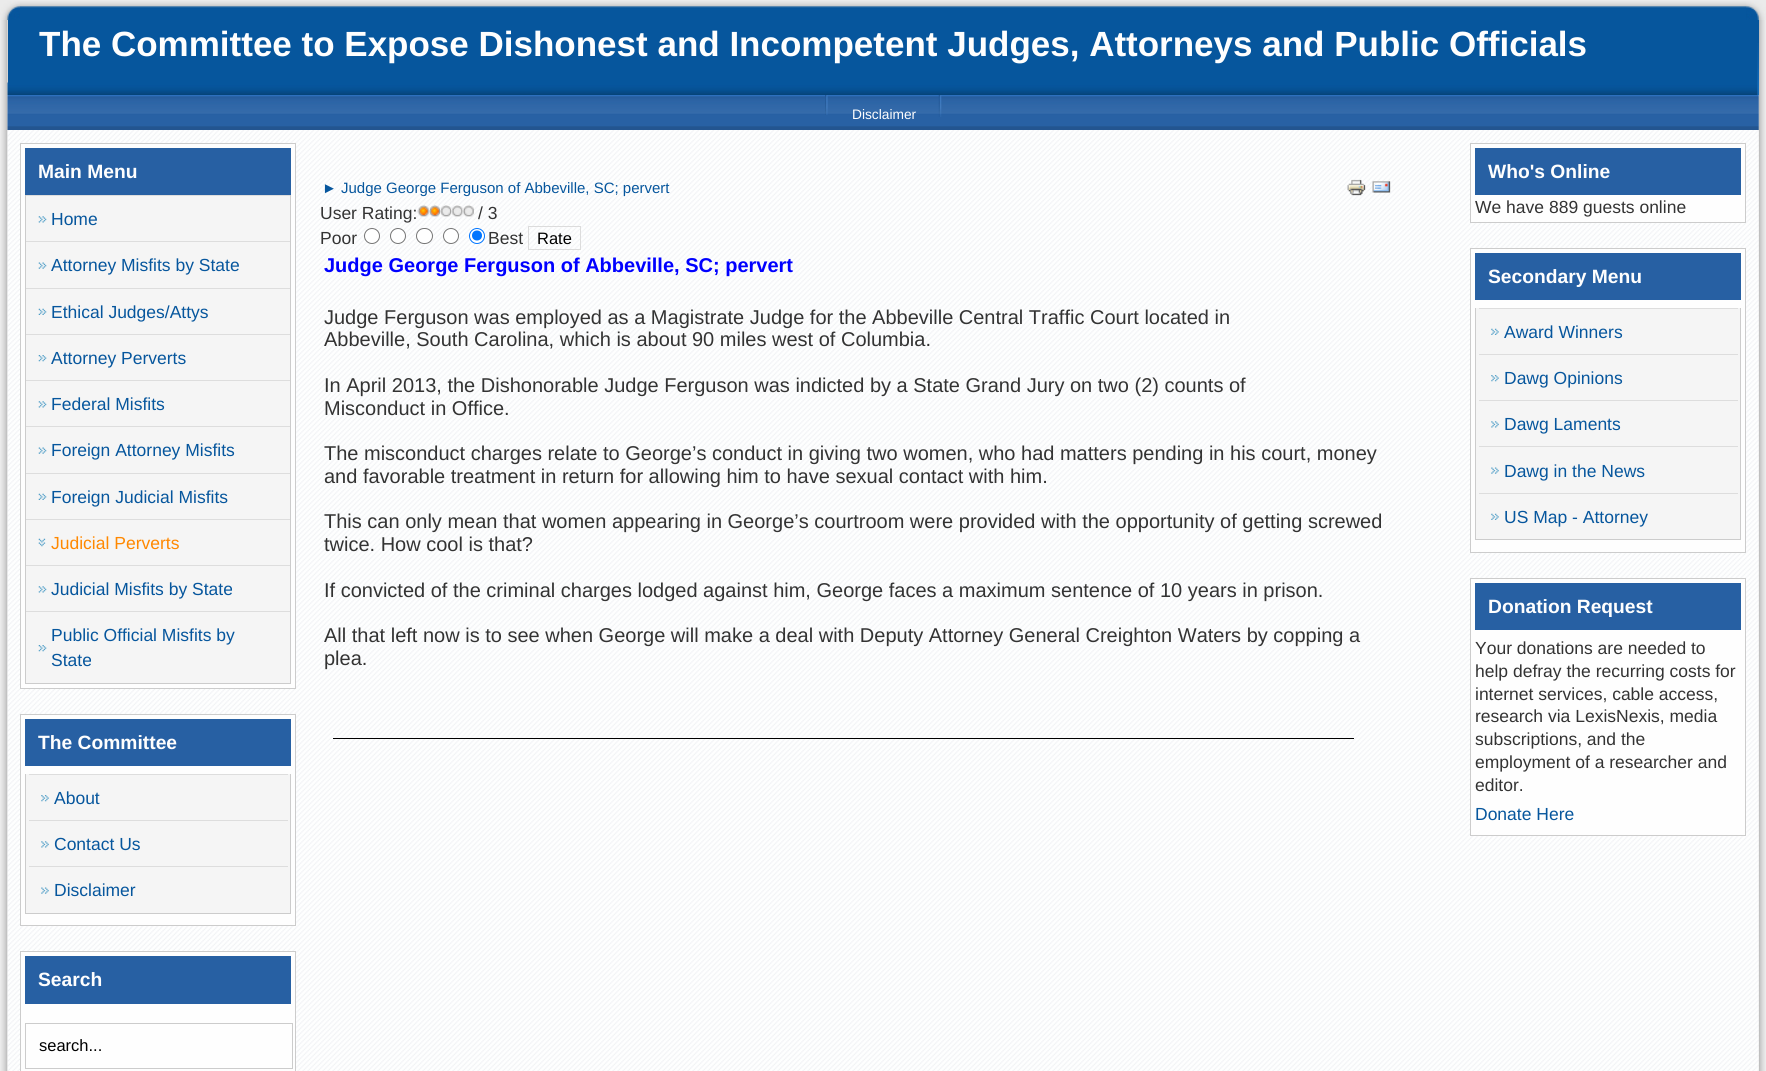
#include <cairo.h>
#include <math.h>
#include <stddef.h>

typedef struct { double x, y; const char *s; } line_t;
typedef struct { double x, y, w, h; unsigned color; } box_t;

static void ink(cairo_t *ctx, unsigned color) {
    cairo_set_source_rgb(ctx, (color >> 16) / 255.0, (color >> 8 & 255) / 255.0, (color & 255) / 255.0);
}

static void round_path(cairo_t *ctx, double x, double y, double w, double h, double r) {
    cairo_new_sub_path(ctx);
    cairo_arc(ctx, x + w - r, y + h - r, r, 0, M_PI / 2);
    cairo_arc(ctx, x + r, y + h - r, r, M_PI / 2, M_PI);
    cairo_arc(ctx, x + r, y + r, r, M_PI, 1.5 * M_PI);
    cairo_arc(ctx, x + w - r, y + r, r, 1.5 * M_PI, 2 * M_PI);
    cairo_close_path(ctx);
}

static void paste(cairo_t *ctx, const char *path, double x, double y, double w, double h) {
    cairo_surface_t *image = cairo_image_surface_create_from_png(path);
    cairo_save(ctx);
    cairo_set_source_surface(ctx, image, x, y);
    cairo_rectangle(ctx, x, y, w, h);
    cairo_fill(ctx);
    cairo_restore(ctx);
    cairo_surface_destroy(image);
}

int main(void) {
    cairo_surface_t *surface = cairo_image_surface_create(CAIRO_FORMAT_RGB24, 1766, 1071);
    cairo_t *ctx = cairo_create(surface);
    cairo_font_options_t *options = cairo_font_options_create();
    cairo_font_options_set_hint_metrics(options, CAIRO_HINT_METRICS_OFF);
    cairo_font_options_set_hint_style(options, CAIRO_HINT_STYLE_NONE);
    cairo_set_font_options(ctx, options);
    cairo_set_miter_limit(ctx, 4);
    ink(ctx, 0xEBEBEB);
    cairo_paint(ctx);
    paste(ctx, "media/1.png", 1, 20, 7, 1051);
    paste(ctx, "media/2.png", 1758, 20, 7, 1051);
    paste(ctx, "media/3.png", 20, 1, 1727, 19);
    paste(ctx, "media/4.png", 0, 1, 20, 19);
    paste(ctx, "media/5.png", 1746, 1, 20, 19);
    ink(ctx, 0x06569D);
    cairo_rectangle(ctx, 8, 20, 1751, 75);
    cairo_fill(ctx);
    paste(ctx, "media/6.png", 7, 82, 1752, 13);
    paste(ctx, "media/7.png", 1757, 43, 2, 52);
    cairo_select_font_face(ctx, "Liberation Sans", CAIRO_FONT_SLANT_NORMAL, CAIRO_FONT_WEIGHT_BOLD);
    cairo_set_font_size(ctx, 35);
    ink(ctx, 0xFEFEFE);
    cairo_move_to(ctx, 39, 56);
    cairo_show_text(ctx, "The Committee to Expose Dishonest and Incompetent Judges, Attorneys and Public Officials");
    paste(ctx, "media/8.png", 7, 95, 1752, 35);
    paste(ctx, "media/9.png", 825, 95, 3, 20);
    paste(ctx, "media/10.png", 938, 95, 4, 22);
    cairo_select_font_face(ctx, "Liberation Sans", CAIRO_FONT_SLANT_NORMAL, CAIRO_FONT_WEIGHT_NORMAL);
    cairo_set_font_size(ctx, 13.75);
    cairo_move_to(ctx, 852, 119);
    cairo_show_text(ctx, "Disclaimer");
    paste(ctx, "media/11.png", 7, 130, 1752, 941);
    cairo_rectangle(ctx, 20.5, 143.5, 275, 545);
    cairo_fill_preserve(ctx);
    ink(ctx, 0xCCCCCC);
    cairo_set_line_width(ctx, 1);
    cairo_stroke(ctx);
    ink(ctx, 0x2760A3);
    cairo_rectangle(ctx, 25, 148, 266, 47);
    cairo_fill(ctx);
    cairo_select_font_face(ctx, "Liberation Sans", CAIRO_FONT_SLANT_NORMAL, CAIRO_FONT_WEIGHT_BOLD);
    cairo_set_font_size(ctx, 19.25);
    ink(ctx, 0xFEFEFE);
    cairo_move_to(ctx, 38, 178);
    cairo_show_text(ctx, "Main Menu");
    {
        static const box_t items[] = {
            {290, 195, 1, 489, 0xCCCCCC},
            {25, 683, 266, 1, 0xCCCCCC},
            {25, 195, 1, 489, 0xCCCCCC},
            {26, 196, 264, 45, 0xF5F5F5},
        };
        for (size_t i = 0; i < sizeof items / sizeof *items; i++) {
            ink(ctx, items[i].color);
            cairo_rectangle(ctx, items[i].x, items[i].y, items[i].w, items[i].h);
            cairo_fill(ctx);
        }
    }
    paste(ctx, "media/12.png", 38, 216, 9, 7);
    ink(ctx, 0xDDDDDD);
    cairo_rectangle(ctx, 26, 195, 264, 1);
    cairo_fill(ctx);
    cairo_select_font_face(ctx, "Liberation Sans", CAIRO_FONT_SLANT_NORMAL, CAIRO_FONT_WEIGHT_NORMAL);
    cairo_set_font_size(ctx, 17.5);
    ink(ctx, 0x06569D);
    cairo_move_to(ctx, 51, 225);
    cairo_show_text(ctx, "Home");
    ink(ctx, 0xF5F5F5);
    cairo_rectangle(ctx, 26, 242, 264, 46);
    cairo_fill(ctx);
    paste(ctx, "media/13.png", 38, 262, 9, 7);
    ink(ctx, 0xDDDDDD);
    cairo_rectangle(ctx, 26, 241, 264, 1);
    cairo_fill(ctx);
    ink(ctx, 0x06569D);
    cairo_move_to(ctx, 51, 271);
    cairo_show_text(ctx, "Attorney Misfits by State");
    ink(ctx, 0xF5F5F5);
    cairo_rectangle(ctx, 26, 289, 264, 45);
    cairo_fill(ctx);
    paste(ctx, "media/14.png", 38, 308, 9, 7);
    ink(ctx, 0xDDDDDD);
    cairo_rectangle(ctx, 26, 288, 264, 1);
    cairo_fill(ctx);
    ink(ctx, 0x06569D);
    cairo_move_to(ctx, 51, 318);
    cairo_show_text(ctx, "Ethical Judges/Attys");
    ink(ctx, 0xF5F5F5);
    cairo_rectangle(ctx, 26, 335, 264, 45);
    cairo_fill(ctx);
    paste(ctx, "media/15.png", 38, 355, 9, 7);
    ink(ctx, 0xDDDDDD);
    cairo_rectangle(ctx, 26, 334, 264, 1);
    cairo_fill(ctx);
    ink(ctx, 0x06569D);
    cairo_move_to(ctx, 51, 364);
    cairo_show_text(ctx, "Attorney Perverts");
    ink(ctx, 0xF5F5F5);
    cairo_rectangle(ctx, 26, 381, 264, 45);
    cairo_fill(ctx);
    paste(ctx, "media/12.png", 38, 401, 9, 7);
    ink(ctx, 0xDDDDDD);
    cairo_rectangle(ctx, 26, 380, 264, 1);
    cairo_fill(ctx);
    ink(ctx, 0x06569D);
    cairo_move_to(ctx, 51, 410);
    cairo_show_text(ctx, "Federal Misfits");
    ink(ctx, 0xF5F5F5);
    cairo_rectangle(ctx, 26, 427, 264, 46);
    cairo_fill(ctx);
    paste(ctx, "media/13.png", 38, 447, 9, 7);
    ink(ctx, 0xDDDDDD);
    cairo_rectangle(ctx, 26, 426, 264, 1);
    cairo_fill(ctx);
    ink(ctx, 0x06569D);
    cairo_move_to(ctx, 51, 456);
    cairo_show_text(ctx, "Foreign Attorney Misfits");
    ink(ctx, 0xF5F5F5);
    cairo_rectangle(ctx, 26, 474, 264, 45);
    cairo_fill(ctx);
    paste(ctx, "media/14.png", 38, 493, 9, 7);
    ink(ctx, 0xDDDDDD);
    cairo_rectangle(ctx, 26, 473, 264, 1);
    cairo_fill(ctx);
    ink(ctx, 0x06569D);
    cairo_move_to(ctx, 51, 503);
    cairo_show_text(ctx, "Foreign Judicial Misfits");
    ink(ctx, 0xF5F5F5);
    cairo_rectangle(ctx, 26, 520, 264, 45);
    cairo_fill(ctx);
    paste(ctx, "media/16.png", 38, 538, 8, 9);
    ink(ctx, 0xDDDDDD);
    cairo_rectangle(ctx, 26, 519, 264, 1);
    cairo_fill(ctx);
    ink(ctx, 0xFF8800);
    cairo_move_to(ctx, 51, 549);
    cairo_show_text(ctx, "Judicial Perverts");
    ink(ctx, 0xF5F5F5);
    cairo_rectangle(ctx, 26, 566, 264, 45);
    cairo_fill(ctx);
    paste(ctx, "media/12.png", 38, 586, 9, 7);
    ink(ctx, 0xDDDDDD);
    cairo_rectangle(ctx, 26, 565, 264, 1);
    cairo_fill(ctx);
    ink(ctx, 0x06569D);
    cairo_move_to(ctx, 51, 595);
    cairo_show_text(ctx, "Judicial Misfits by State");
    ink(ctx, 0xF5F5F5);
    cairo_rectangle(ctx, 26, 612, 264, 71);
    cairo_fill(ctx);
    paste(ctx, "media/15.png", 38, 645, 9, 7);
    ink(ctx, 0xDDDDDD);
    cairo_rectangle(ctx, 26, 611, 264, 1);
    cairo_fill(ctx);
    ink(ctx, 0x06569D);
    cairo_move_to(ctx, 51, 641);
    cairo_show_text(ctx, "Public Official Misfits by");
    cairo_move_to(ctx, 51, 666);
    cairo_show_text(ctx, "State");
    ink(ctx, 0xFEFEFE);
    cairo_rectangle(ctx, 20.5, 714.5, 275, 211);
    cairo_fill_preserve(ctx);
    ink(ctx, 0xCCCCCC);
    cairo_stroke(ctx);
    ink(ctx, 0x2760A3);
    cairo_rectangle(ctx, 25, 719, 266, 47);
    cairo_fill(ctx);
    cairo_select_font_face(ctx, "Liberation Sans", CAIRO_FONT_SLANT_NORMAL, CAIRO_FONT_WEIGHT_BOLD);
    cairo_set_font_size(ctx, 19.25);
    ink(ctx, 0xFEFEFE);
    cairo_move_to(ctx, 38, 749);
    cairo_show_text(ctx, "The Committee");
    {
        static const box_t items[] = {
            {290, 774, 1, 140, 0xCCCCCC},
            {25, 913, 266, 1, 0xCCCCCC},
            {25, 774, 1, 140, 0xCCCCCC},
            {26, 774, 264, 139, 0xF5F5F5},
        };
        for (size_t i = 0; i < sizeof items / sizeof *items; i++) {
            ink(ctx, items[i].color);
            cairo_rectangle(ctx, items[i].x, items[i].y, items[i].w, items[i].h);
            cairo_fill(ctx);
        }
    }
    paste(ctx, "media/17.png", 41, 795, 8, 7);
    ink(ctx, 0xDDDDDD);
    cairo_rectangle(ctx, 29, 774, 259, 1);
    cairo_fill(ctx);
    cairo_select_font_face(ctx, "Liberation Sans", CAIRO_FONT_SLANT_NORMAL, CAIRO_FONT_WEIGHT_NORMAL);
    cairo_set_font_size(ctx, 17.5);
    ink(ctx, 0x06569D);
    cairo_move_to(ctx, 54, 804);
    cairo_show_text(ctx, "About");
    paste(ctx, "media/18.png", 41, 841, 8, 7);
    ink(ctx, 0xDDDDDD);
    cairo_rectangle(ctx, 29, 820, 259, 1);
    cairo_fill(ctx);
    ink(ctx, 0x06569D);
    cairo_move_to(ctx, 54, 850);
    cairo_show_text(ctx, "Contact Us");
    paste(ctx, "media/19.png", 41, 887, 8, 7);
    ink(ctx, 0xDDDDDD);
    cairo_rectangle(ctx, 29, 866, 259, 1);
    cairo_fill(ctx);
    ink(ctx, 0x06569D);
    cairo_move_to(ctx, 54, 896);
    cairo_show_text(ctx, "Disclaimer");
    ink(ctx, 0xFEFEFE);
    cairo_rectangle(ctx, 20.5, 951.5, 275, 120);
    cairo_fill_preserve(ctx);
    ink(ctx, 0xCCCCCC);
    cairo_stroke(ctx);
    ink(ctx, 0x2760A3);
    cairo_rectangle(ctx, 25, 956, 266, 48);
    cairo_fill(ctx);
    cairo_select_font_face(ctx, "Liberation Sans", CAIRO_FONT_SLANT_NORMAL, CAIRO_FONT_WEIGHT_BOLD);
    cairo_set_font_size(ctx, 19.25);
    ink(ctx, 0xFEFEFE);
    cairo_move_to(ctx, 38, 986);
    cairo_show_text(ctx, "Search");
    cairo_rectangle(ctx, 25.5, 1023.5, 267, 45);
    ink(ctx, 0xCCCCCC);
    cairo_stroke(ctx);
    cairo_select_font_face(ctx, "Liberation Sans", CAIRO_FONT_SLANT_NORMAL, CAIRO_FONT_WEIGHT_NORMAL);
    cairo_set_font_size(ctx, 16.5);
    ink(ctx, 0x000000);
    cairo_move_to(ctx, 39, 1051);
    cairo_show_text(ctx, "search...");
    cairo_set_font_size(ctx, 15);
    ink(ctx, 0x06569D);
    cairo_move_to(ctx, 322, 193);
    cairo_show_text(ctx, "► Judge George Ferguson of Abbeville, SC; pervert");
    paste(ctx, "media/20.png", 1347, 179, 19, 17);
    paste(ctx, "media/21.png", 1372, 181, 19, 12);
    cairo_set_font_size(ctx, 17.5);
    ink(ctx, 0x333333);
    cairo_move_to(ctx, 320, 219);
    cairo_show_text(ctx, "User Rating:");
    paste(ctx, "media/22.png", 417, 205, 12, 12);
    paste(ctx, "media/23.png", 428, 205, 12, 12);
    paste(ctx, "media/24.png", 440, 205, 12, 12);
    paste(ctx, "media/25.png", 451, 205, 12, 12);
    paste(ctx, "media/26.png", 462, 205, 12, 12);
    cairo_move_to(ctx, 478, 219);
    cairo_show_text(ctx, "/ 3");
    cairo_move_to(ctx, 320, 244);
    cairo_show_text(ctx, "Poor");
    ink(ctx, 0xFFFFFF);
    cairo_new_path(ctx);
    cairo_arc(ctx, 372, 236, 7.5, 0, 2 * M_PI);
    cairo_fill_preserve(ctx);
    ink(ctx, 0x767676);
    cairo_stroke(ctx);
    ink(ctx, 0xFFFFFF);
    cairo_arc(ctx, 398, 236, 7.5, 0, 2 * M_PI);
    cairo_fill_preserve(ctx);
    ink(ctx, 0x767676);
    cairo_stroke(ctx);
    ink(ctx, 0xFFFFFF);
    round_path(ctx, 416.5, 228.5, 16, 15, 7.5);
    cairo_fill_preserve(ctx);
    ink(ctx, 0x767676);
    cairo_stroke(ctx);
    ink(ctx, 0xFFFFFF);
    cairo_arc(ctx, 451, 236, 7.5, 0, 2 * M_PI);
    cairo_fill_preserve(ctx);
    ink(ctx, 0x767676);
    cairo_stroke(ctx);
    ink(ctx, 0xFFFFFF);
    cairo_arc(ctx, 477, 236, 7.5, 0, 2 * M_PI);
    cairo_fill_preserve(ctx);
    ink(ctx, 0x0075FF);
    cairo_stroke(ctx);
    cairo_arc(ctx, 477, 235.5, 5, 0, 2 * M_PI);
    cairo_fill(ctx);
    ink(ctx, 0x333333);
    cairo_move_to(ctx, 488, 244);
    cairo_show_text(ctx, "Best");
    cairo_rectangle(ctx, 528.5, 226.5, 52, 23);
    ink(ctx, 0xDCDCDC);
    cairo_stroke(ctx);
    cairo_set_font_size(ctx, 16.5);
    ink(ctx, 0x000000);
    cairo_move_to(ctx, 537, 244);
    cairo_show_text(ctx, "Rate");
    cairo_select_font_face(ctx, "Liberation Sans", CAIRO_FONT_SLANT_NORMAL, CAIRO_FONT_WEIGHT_BOLD);
    cairo_set_font_size(ctx, 20);
    ink(ctx, 0x0000FF);
    cairo_move_to(ctx, 324, 272);
    cairo_show_text(ctx, "Judge George Ferguson of Abbeville, SC; pervert");
    cairo_select_font_face(ctx, "Liberation Sans", CAIRO_FONT_SLANT_NORMAL, CAIRO_FONT_WEIGHT_NORMAL);
    ink(ctx, 0x333333);
    {
        static const line_t items[] = {
            {324, 324, "Judge Ferguson was employed as a Magistrate Judge for the Abbeville Central Traffic Court located in"},
            {324, 346, "Abbeville, South Carolina, which is about 90 miles west of Columbia."},
            {324, 392, "In April 2013, the Dishonorable Judge Ferguson was indicted by a State Grand Jury on two (2) counts of"},
            {324, 415, "Misconduct in Office."},
            {324, 460, "The misconduct charges relate to George’s conduct in giving two women, who had matters pending in his court, money"},
            {324, 483, "and favorable treatment in return for allowing him to have sexual contact with him."},
            {324, 528, "This can only mean that women appearing in George’s courtroom were provided with the opportunity of getting screwed"},
            {324, 551, "twice. How cool is that?"},
            {324, 597, "If convicted of the criminal charges lodged against him, George faces a maximum sentence of 10 years in prison."},
            {324, 642, "All that left now is to see when George will make a deal with Deputy Attorney General Creighton Waters by copping a"},
            {324, 665, "plea."},
        };
        for (size_t i = 0; i < sizeof items / sizeof *items; i++) {
            cairo_move_to(ctx, items[i].x, items[i].y);
            cairo_show_text(ctx, items[i].s);
        }
    }
    ink(ctx, 0x000000);
    cairo_rectangle(ctx, 333, 738, 1021, 1);
    cairo_fill(ctx);
    ink(ctx, 0xFEFEFE);
    cairo_rectangle(ctx, 1470.5, 143.5, 275, 79);
    cairo_fill_preserve(ctx);
    ink(ctx, 0xCCCCCC);
    cairo_stroke(ctx);
    ink(ctx, 0x2760A3);
    cairo_rectangle(ctx, 1475, 148, 266, 47);
    cairo_fill(ctx);
    cairo_select_font_face(ctx, "Liberation Sans", CAIRO_FONT_SLANT_NORMAL, CAIRO_FONT_WEIGHT_BOLD);
    cairo_set_font_size(ctx, 19.25);
    ink(ctx, 0xFEFEFE);
    cairo_move_to(ctx, 1488, 178);
    cairo_show_text(ctx, "Who's Online");
    cairo_select_font_face(ctx, "Liberation Sans", CAIRO_FONT_SLANT_NORMAL, CAIRO_FONT_WEIGHT_NORMAL);
    cairo_set_font_size(ctx, 17.5);
    ink(ctx, 0x333333);
    cairo_move_to(ctx, 1475, 213);
    cairo_show_text(ctx, "We have 889 guests online");
    ink(ctx, 0xFEFEFE);
    cairo_rectangle(ctx, 1470.5, 248.5, 275, 304);
    cairo_fill_preserve(ctx);
    ink(ctx, 0xCCCCCC);
    cairo_stroke(ctx);
    ink(ctx, 0x2760A3);
    cairo_rectangle(ctx, 1475, 253, 266, 47);
    cairo_fill(ctx);
    cairo_select_font_face(ctx, "Liberation Sans", CAIRO_FONT_SLANT_NORMAL, CAIRO_FONT_WEIGHT_BOLD);
    cairo_set_font_size(ctx, 19.25);
    ink(ctx, 0xFEFEFE);
    cairo_move_to(ctx, 1488, 283);
    cairo_show_text(ctx, "Secondary Menu");
    {
        static const box_t items[] = {
            {1740, 308, 1, 232, 0xCCCCCC},
            {1475, 539, 266, 1, 0xCCCCCC},
            {1475, 308, 1, 232, 0xCCCCCC},
            {1476, 308, 264, 231, 0xF5F5F5},
        };
        for (size_t i = 0; i < sizeof items / sizeof *items; i++) {
            ink(ctx, items[i].color);
            cairo_rectangle(ctx, items[i].x, items[i].y, items[i].w, items[i].h);
            cairo_fill(ctx);
        }
    }
    paste(ctx, "media/27.png", 1491, 328, 8, 7);
    ink(ctx, 0xDDDDDD);
    cairo_rectangle(ctx, 1479, 308, 259, 1);
    cairo_fill(ctx);
    cairo_select_font_face(ctx, "Liberation Sans", CAIRO_FONT_SLANT_NORMAL, CAIRO_FONT_WEIGHT_NORMAL);
    cairo_set_font_size(ctx, 17.5);
    ink(ctx, 0x06569D);
    cairo_move_to(ctx, 1504, 338);
    cairo_show_text(ctx, "Award Winners");
    paste(ctx, "media/17.png", 1491, 375, 8, 7);
    ink(ctx, 0xDDDDDD);
    cairo_rectangle(ctx, 1479, 354, 259, 1);
    cairo_fill(ctx);
    ink(ctx, 0x06569D);
    cairo_move_to(ctx, 1504, 384);
    cairo_show_text(ctx, "Dawg Opinions");
    paste(ctx, "media/18.png", 1491, 421, 8, 7);
    ink(ctx, 0xDDDDDD);
    cairo_rectangle(ctx, 1479, 400, 259, 1);
    cairo_fill(ctx);
    ink(ctx, 0x06569D);
    cairo_move_to(ctx, 1504, 430);
    cairo_show_text(ctx, "Dawg Laments");
    paste(ctx, "media/19.png", 1491, 467, 8, 7);
    ink(ctx, 0xDDDDDD);
    cairo_rectangle(ctx, 1479, 446, 259, 1);
    cairo_fill(ctx);
    ink(ctx, 0x06569D);
    cairo_move_to(ctx, 1504, 477);
    cairo_show_text(ctx, "Dawg in the News");
    paste(ctx, "media/27.png", 1491, 513, 8, 7);
    ink(ctx, 0xDDDDDD);
    cairo_rectangle(ctx, 1479, 493, 259, 1);
    cairo_fill(ctx);
    ink(ctx, 0x06569D);
    cairo_move_to(ctx, 1504, 523);
    cairo_show_text(ctx, "US Map - Attorney");
    ink(ctx, 0xFEFEFE);
    cairo_rectangle(ctx, 1470.5, 578.5, 275, 257);
    cairo_fill_preserve(ctx);
    ink(ctx, 0xCCCCCC);
    cairo_stroke(ctx);
    ink(ctx, 0x2760A3);
    cairo_rectangle(ctx, 1475, 583, 266, 47);
    cairo_fill(ctx);
    cairo_select_font_face(ctx, "Liberation Sans", CAIRO_FONT_SLANT_NORMAL, CAIRO_FONT_WEIGHT_BOLD);
    cairo_set_font_size(ctx, 19.25);
    ink(ctx, 0xFEFEFE);
    cairo_move_to(ctx, 1488, 613);
    cairo_show_text(ctx, "Donation Request");
    cairo_select_font_face(ctx, "Liberation Sans", CAIRO_FONT_SLANT_NORMAL, CAIRO_FONT_WEIGHT_NORMAL);
    cairo_set_font_size(ctx, 17.5);
    ink(ctx, 0x333333);
    {
        static const line_t items[] = {
            {1475, 654, "Your donations are needed to"},
            {1475, 677, "help defray the recurring costs for"},
            {1475, 700, "internet services, cable access,"},
            {1475, 722, "research via LexisNexis, media"},
            {1475, 745, "subscriptions, and the"},
            {1475, 768, "employment of a researcher and"},
            {1475, 791, "editor."},
        };
        for (size_t i = 0; i < sizeof items / sizeof *items; i++) {
            cairo_move_to(ctx, items[i].x, items[i].y);
            cairo_show_text(ctx, items[i].s);
        }
    }
    ink(ctx, 0x06569D);
    cairo_move_to(ctx, 1475, 820);
    cairo_show_text(ctx, "Donate Here");
    cairo_surface_write_to_png(surface, "image.png");
    cairo_font_options_destroy(options);
    cairo_destroy(ctx);
    cairo_surface_destroy(surface);
    return 0;
}
